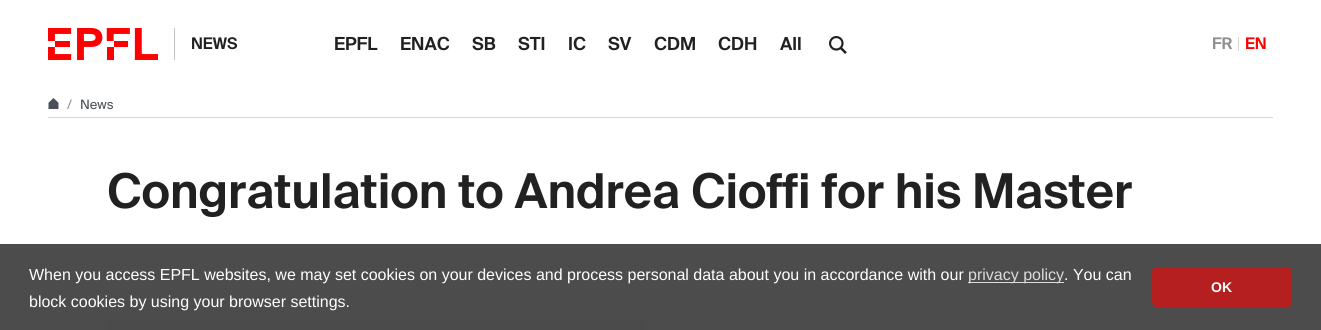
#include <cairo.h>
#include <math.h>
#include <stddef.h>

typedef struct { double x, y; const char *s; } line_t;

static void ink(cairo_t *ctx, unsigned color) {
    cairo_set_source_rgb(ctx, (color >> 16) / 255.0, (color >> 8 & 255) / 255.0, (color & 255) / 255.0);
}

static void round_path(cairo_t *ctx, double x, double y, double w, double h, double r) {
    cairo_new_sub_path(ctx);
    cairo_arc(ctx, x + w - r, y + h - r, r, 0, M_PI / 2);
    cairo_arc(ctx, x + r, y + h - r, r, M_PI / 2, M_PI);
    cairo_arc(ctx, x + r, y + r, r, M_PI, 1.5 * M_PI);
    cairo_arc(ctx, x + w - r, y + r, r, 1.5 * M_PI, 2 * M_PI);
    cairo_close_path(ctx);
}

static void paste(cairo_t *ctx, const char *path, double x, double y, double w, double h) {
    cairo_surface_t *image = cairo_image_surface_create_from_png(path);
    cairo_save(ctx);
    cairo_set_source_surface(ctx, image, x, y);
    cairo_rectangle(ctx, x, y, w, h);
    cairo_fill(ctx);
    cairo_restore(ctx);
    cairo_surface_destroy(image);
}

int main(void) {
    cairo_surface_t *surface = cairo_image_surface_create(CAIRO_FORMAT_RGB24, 1321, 330);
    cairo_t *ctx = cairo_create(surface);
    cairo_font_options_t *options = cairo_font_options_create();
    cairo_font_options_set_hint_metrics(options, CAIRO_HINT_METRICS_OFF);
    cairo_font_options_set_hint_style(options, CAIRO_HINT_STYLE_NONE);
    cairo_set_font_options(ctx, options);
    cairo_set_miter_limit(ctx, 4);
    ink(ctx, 0xFFFFFF);
    cairo_paint(ctx);
    ink(ctx, 0xC1C1C1);
    cairo_rectangle(ctx, 174, 28, 1, 32);
    cairo_fill(ctx);
    paste(ctx, "media/1.png", 48, 28, 110, 32);
    cairo_select_font_face(ctx, "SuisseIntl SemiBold", CAIRO_FONT_SLANT_NORMAL, CAIRO_FONT_WEIGHT_NORMAL);
    cairo_set_font_size(ctx, 16);
    ink(ctx, 0x212121);
    cairo_move_to(ctx, 191, 49);
    cairo_show_text(ctx, "NEWS");
    cairo_set_font_size(ctx, 18);
    {
        static const line_t items[] = {
            {334, 50, "EPFL"},
            {400, 50, "ENAC"},
            {472, 50, "SB"},
            {518, 50, "STI"},
            {568, 50, "IC"},
            {608, 50, "SV"},
            {654, 50, "CDM"},
            {718, 50, "CDH"},
            {780, 50, "All"},
        };
        for (size_t i = 0; i < sizeof items / sizeof *items; i++) {
            cairo_move_to(ctx, items[i].x, items[i].y);
            cairo_show_text(ctx, items[i].s);
        }
    }
    paste(ctx, "media/2.png", 829, 36, 18, 18);
    cairo_set_font_size(ctx, 16);
    ink(ctx, 0x8E8E8E);
    cairo_move_to(ctx, 1212, 49);
    cairo_show_text(ctx, "FR");
    ink(ctx, 0xD5D5D5);
    cairo_rectangle(ctx, 1238, 37, 1, 14);
    cairo_fill(ctx);
    ink(ctx, 0xFF0000);
    cairo_move_to(ctx, 1245, 49);
    cairo_show_text(ctx, "EN");
    ink(ctx, 0xD5D5D5);
    cairo_rectangle(ctx, 48, 117, 1225, 1);
    cairo_fill(ctx);
    paste(ctx, "media/3.png", 48, 98, 11, 11);
    cairo_select_font_face(ctx, "SuisseIntl", CAIRO_FONT_SLANT_NORMAL, CAIRO_FONT_WEIGHT_NORMAL);
    cairo_set_font_size(ctx, 13);
    ink(ctx, 0x8E8E8E);
    cairo_move_to(ctx, 67, 109);
    cairo_show_text(ctx, "/");
    ink(ctx, 0x495057);
    cairo_move_to(ctx, 80, 109);
    cairo_show_text(ctx, "News");
    cairo_select_font_face(ctx, "SuisseIntl SemiBold", CAIRO_FONT_SLANT_NORMAL, CAIRO_FONT_WEIGHT_NORMAL);
    cairo_set_font_size(ctx, 48);
    ink(ctx, 0x212121);
    cairo_move_to(ctx, 107, 208);
    cairo_show_text(ctx, "Congratulation to Andrea Cioffi for his Master");
    ink(ctx, 0xE6E6E6);
    cairo_rectangle(ctx, 107, 319, 538, 11);
    cairo_fill(ctx);
    cairo_set_source_rgba(ctx, 0.271, 0.271, 0.271, 0.96);
    cairo_rectangle(ctx, 0, 244, 1321, 86);
    cairo_fill(ctx);
    cairo_select_font_face(ctx, "Liberation Sans", CAIRO_FONT_SLANT_NORMAL, CAIRO_FONT_WEIGHT_NORMAL);
    cairo_set_font_size(ctx, 16);
    ink(ctx, 0xFFFFFF);
    cairo_move_to(ctx, 29, 280);
    cairo_show_text(ctx, "When you access EPFL websites, we may set cookies on your devices and process personal data about you in accordance with our");
    ink(ctx, 0xDBDBDB);
    cairo_rectangle(ctx, 968, 282, 96, 1);
    cairo_fill(ctx);
    cairo_move_to(ctx, 968, 280);
    cairo_show_text(ctx, "privacy policy");
    ink(ctx, 0xFFFFFF);
    cairo_move_to(ctx, 1064, 280);
    cairo_show_text(ctx, ". You can");
    cairo_move_to(ctx, 29, 307);
    cairo_show_text(ctx, "block cookies by using your browser settings.");
    ink(ctx, 0xB51F1F);
    round_path(ctx, 1152, 267, 140, 40, 5);
    cairo_fill(ctx);
    cairo_select_font_face(ctx, "Liberation Sans", CAIRO_FONT_SLANT_NORMAL, CAIRO_FONT_WEIGHT_BOLD);
    cairo_set_font_size(ctx, 14);
    ink(ctx, 0xFFFFFF);
    cairo_move_to(ctx, 1211, 292);
    cairo_show_text(ctx, "OK");
    cairo_surface_write_to_png(surface, "image.png");
    cairo_font_options_destroy(options);
    cairo_destroy(ctx);
    cairo_surface_destroy(surface);
    return 0;
}
